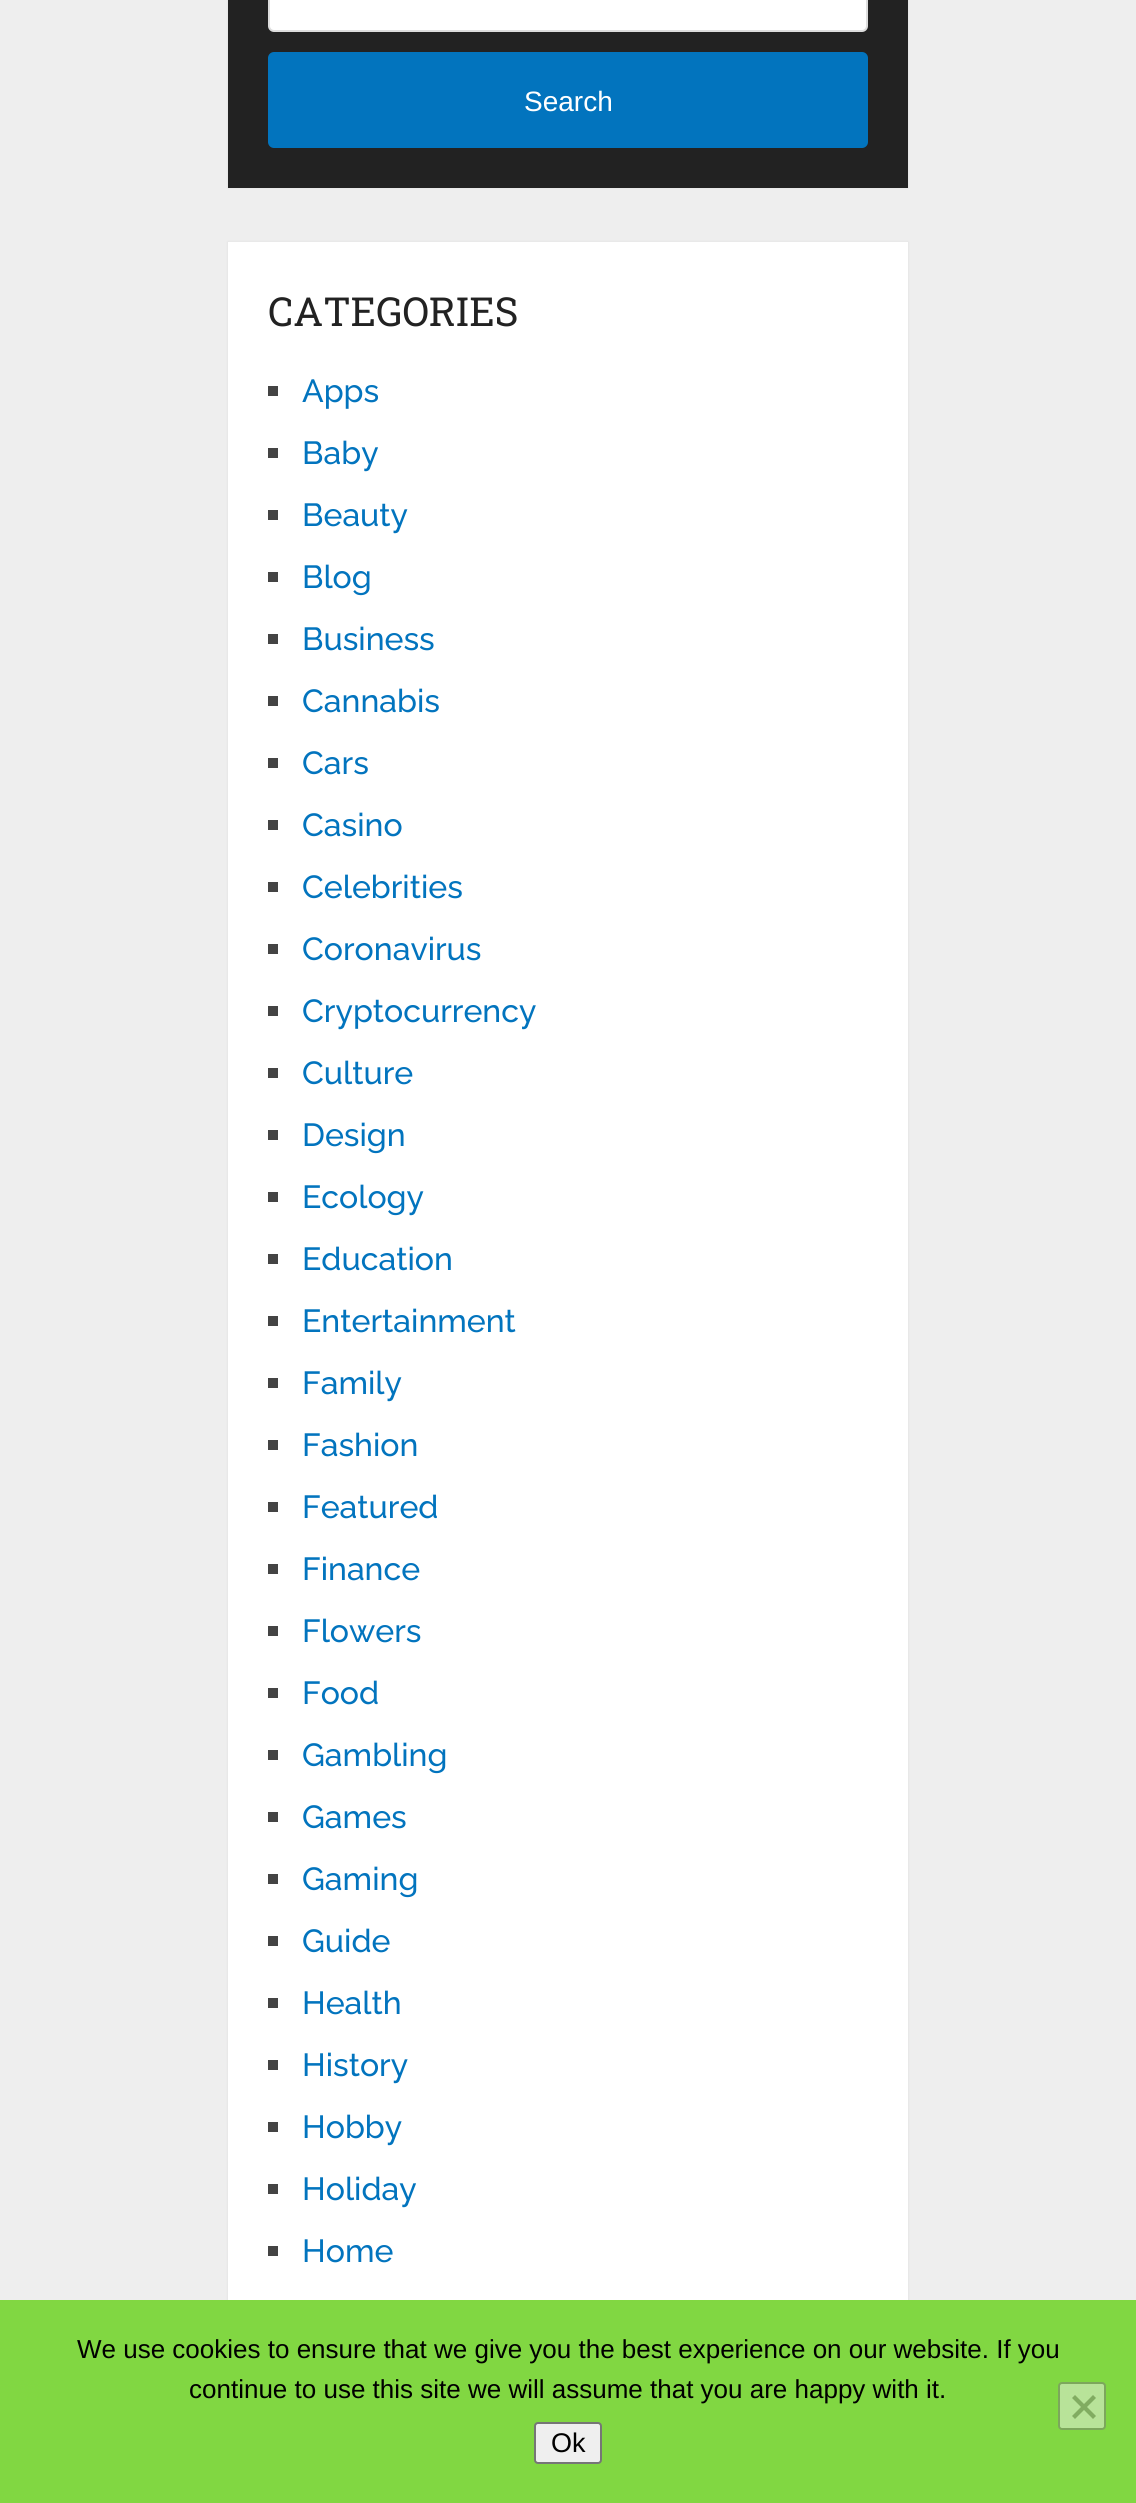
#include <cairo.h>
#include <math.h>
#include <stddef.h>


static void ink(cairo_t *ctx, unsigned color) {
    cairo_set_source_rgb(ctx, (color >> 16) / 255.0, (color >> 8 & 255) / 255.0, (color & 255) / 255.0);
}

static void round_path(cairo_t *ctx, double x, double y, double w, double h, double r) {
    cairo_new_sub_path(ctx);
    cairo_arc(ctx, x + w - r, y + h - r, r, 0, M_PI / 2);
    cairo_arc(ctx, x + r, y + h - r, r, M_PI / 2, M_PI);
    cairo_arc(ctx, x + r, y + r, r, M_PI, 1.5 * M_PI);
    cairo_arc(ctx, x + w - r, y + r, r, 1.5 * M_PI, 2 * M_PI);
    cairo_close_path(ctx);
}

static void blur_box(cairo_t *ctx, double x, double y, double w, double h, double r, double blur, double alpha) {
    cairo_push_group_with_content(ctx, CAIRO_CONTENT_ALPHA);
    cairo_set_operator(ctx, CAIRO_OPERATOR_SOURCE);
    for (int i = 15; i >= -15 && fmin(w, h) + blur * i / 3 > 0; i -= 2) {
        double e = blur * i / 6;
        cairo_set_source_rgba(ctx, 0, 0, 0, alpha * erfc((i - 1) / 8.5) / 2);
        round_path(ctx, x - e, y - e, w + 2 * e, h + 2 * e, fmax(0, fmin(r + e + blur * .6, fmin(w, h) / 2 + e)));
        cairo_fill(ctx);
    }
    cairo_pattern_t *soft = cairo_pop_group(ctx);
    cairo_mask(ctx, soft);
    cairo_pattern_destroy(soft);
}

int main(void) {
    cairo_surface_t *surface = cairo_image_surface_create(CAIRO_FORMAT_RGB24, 1136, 2503);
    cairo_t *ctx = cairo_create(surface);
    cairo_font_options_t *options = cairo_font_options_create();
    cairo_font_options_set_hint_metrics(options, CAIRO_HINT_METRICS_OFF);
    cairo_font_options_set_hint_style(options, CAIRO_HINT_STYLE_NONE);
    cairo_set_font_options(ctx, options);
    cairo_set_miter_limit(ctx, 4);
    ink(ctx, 0xEEEEEE);
    cairo_paint(ctx);
    ink(ctx, 0x323232);
    blur_box(ctx, 228, -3, 680, 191, 0, 1, 0.1);
    ink(ctx, 0x222222);
    cairo_rectangle(ctx, 228, 0, 680, 188);
    cairo_fill(ctx);
    ink(ctx, 0xFFFFFF);
    round_path(ctx, 269, -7, 598, 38, 5);
    cairo_fill_preserve(ctx);
    ink(ctx, 0xDDDDDD);
    cairo_stroke(ctx);
    ink(ctx, 0x0274BE);
    round_path(ctx, 268, 52, 600, 96, 6);
    cairo_fill(ctx);
    cairo_select_font_face(ctx, "Liberation Sans", CAIRO_FONT_SLANT_NORMAL, CAIRO_FONT_WEIGHT_NORMAL);
    cairo_set_font_size(ctx, 28);
    ink(ctx, 0xFFFFFF);
    cairo_move_to(ctx, 524, 111);
    cairo_show_text(ctx, "Search");
    ink(ctx, 0x323232);
    blur_box(ctx, 228, 242, 680, 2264, 0, 1, 0.1);
    ink(ctx, 0xFFFFFF);
    cairo_rectangle(ctx, 228, 242, 680, 2058);
    cairo_fill(ctx);
    cairo_select_font_face(ctx, "Roboto Slab", CAIRO_FONT_SLANT_NORMAL, CAIRO_FONT_WEIGHT_NORMAL);
    cairo_set_font_size(ctx, 40);
    ink(ctx, 0x222222);
    cairo_move_to(ctx, 268, 326);
    cairo_show_text(ctx, "CATEGORIES");
    ink(ctx, 0x444444);
    cairo_rectangle(ctx, 268, 386, 10, 10);
    cairo_fill(ctx);
    cairo_select_font_face(ctx, "Raleway Medium", CAIRO_FONT_SLANT_NORMAL, CAIRO_FONT_WEIGHT_NORMAL);
    cairo_set_font_size(ctx, 32);
    ink(ctx, 0x0274BE);
    cairo_move_to(ctx, 302, 402);
    cairo_show_text(ctx, "Apps");
    ink(ctx, 0x444444);
    cairo_rectangle(ctx, 268, 448, 10, 10);
    cairo_fill(ctx);
    ink(ctx, 0x0274BE);
    cairo_move_to(ctx, 302, 464);
    cairo_show_text(ctx, "Baby");
    ink(ctx, 0x444444);
    cairo_rectangle(ctx, 268, 510, 10, 10);
    cairo_fill(ctx);
    ink(ctx, 0x0274BE);
    cairo_move_to(ctx, 302, 526);
    cairo_show_text(ctx, "Beauty");
    ink(ctx, 0x444444);
    cairo_rectangle(ctx, 268, 572, 10, 10);
    cairo_fill(ctx);
    ink(ctx, 0x0274BE);
    cairo_move_to(ctx, 302, 588);
    cairo_show_text(ctx, "Blog");
    ink(ctx, 0x444444);
    cairo_rectangle(ctx, 268, 634, 10, 10);
    cairo_fill(ctx);
    ink(ctx, 0x0274BE);
    cairo_move_to(ctx, 302, 650);
    cairo_show_text(ctx, "Business");
    ink(ctx, 0x444444);
    cairo_rectangle(ctx, 268, 696, 10, 10);
    cairo_fill(ctx);
    ink(ctx, 0x0274BE);
    cairo_move_to(ctx, 302, 712);
    cairo_show_text(ctx, "Cannabis");
    ink(ctx, 0x444444);
    cairo_rectangle(ctx, 268, 758, 10, 10);
    cairo_fill(ctx);
    ink(ctx, 0x0274BE);
    cairo_move_to(ctx, 302, 774);
    cairo_show_text(ctx, "Cars");
    ink(ctx, 0x444444);
    cairo_rectangle(ctx, 268, 820, 10, 10);
    cairo_fill(ctx);
    ink(ctx, 0x0274BE);
    cairo_move_to(ctx, 302, 836);
    cairo_show_text(ctx, "Casino");
    ink(ctx, 0x444444);
    cairo_rectangle(ctx, 268, 882, 10, 10);
    cairo_fill(ctx);
    ink(ctx, 0x0274BE);
    cairo_move_to(ctx, 302, 898);
    cairo_show_text(ctx, "Celebrities");
    ink(ctx, 0x444444);
    cairo_rectangle(ctx, 268, 944, 10, 10);
    cairo_fill(ctx);
    ink(ctx, 0x0274BE);
    cairo_move_to(ctx, 302, 960);
    cairo_show_text(ctx, "Coronavirus");
    ink(ctx, 0x444444);
    cairo_rectangle(ctx, 268, 1006, 10, 10);
    cairo_fill(ctx);
    ink(ctx, 0x0274BE);
    cairo_move_to(ctx, 302, 1022);
    cairo_show_text(ctx, "Cryptocurrency");
    ink(ctx, 0x444444);
    cairo_rectangle(ctx, 268, 1068, 10, 10);
    cairo_fill(ctx);
    ink(ctx, 0x0274BE);
    cairo_move_to(ctx, 302, 1084);
    cairo_show_text(ctx, "Culture");
    ink(ctx, 0x444444);
    cairo_rectangle(ctx, 268, 1130, 10, 10);
    cairo_fill(ctx);
    ink(ctx, 0x0274BE);
    cairo_move_to(ctx, 302, 1146);
    cairo_show_text(ctx, "Design");
    ink(ctx, 0x444444);
    cairo_rectangle(ctx, 268, 1192, 10, 10);
    cairo_fill(ctx);
    ink(ctx, 0x0274BE);
    cairo_move_to(ctx, 302, 1208);
    cairo_show_text(ctx, "Ecology");
    ink(ctx, 0x444444);
    cairo_rectangle(ctx, 268, 1254, 10, 10);
    cairo_fill(ctx);
    ink(ctx, 0x0274BE);
    cairo_move_to(ctx, 302, 1270);
    cairo_show_text(ctx, "Education");
    ink(ctx, 0x444444);
    cairo_rectangle(ctx, 268, 1316, 10, 10);
    cairo_fill(ctx);
    ink(ctx, 0x0274BE);
    cairo_move_to(ctx, 302, 1332);
    cairo_show_text(ctx, "Entertainment");
    ink(ctx, 0x444444);
    cairo_rectangle(ctx, 268, 1378, 10, 10);
    cairo_fill(ctx);
    ink(ctx, 0x0274BE);
    cairo_move_to(ctx, 302, 1394);
    cairo_show_text(ctx, "Family");
    ink(ctx, 0x444444);
    cairo_rectangle(ctx, 268, 1440, 10, 10);
    cairo_fill(ctx);
    ink(ctx, 0x0274BE);
    cairo_move_to(ctx, 302, 1456);
    cairo_show_text(ctx, "Fashion");
    ink(ctx, 0x444444);
    cairo_rectangle(ctx, 268, 1502, 10, 10);
    cairo_fill(ctx);
    ink(ctx, 0x0274BE);
    cairo_move_to(ctx, 302, 1518);
    cairo_show_text(ctx, "Featured");
    ink(ctx, 0x444444);
    cairo_rectangle(ctx, 268, 1564, 10, 10);
    cairo_fill(ctx);
    ink(ctx, 0x0274BE);
    cairo_move_to(ctx, 302, 1580);
    cairo_show_text(ctx, "Finance");
    ink(ctx, 0x444444);
    cairo_rectangle(ctx, 268, 1626, 10, 10);
    cairo_fill(ctx);
    ink(ctx, 0x0274BE);
    cairo_move_to(ctx, 302, 1642);
    cairo_show_text(ctx, "Flowers");
    ink(ctx, 0x444444);
    cairo_rectangle(ctx, 268, 1688, 10, 10);
    cairo_fill(ctx);
    ink(ctx, 0x0274BE);
    cairo_move_to(ctx, 302, 1704);
    cairo_show_text(ctx, "Food");
    ink(ctx, 0x444444);
    cairo_rectangle(ctx, 268, 1750, 10, 10);
    cairo_fill(ctx);
    ink(ctx, 0x0274BE);
    cairo_move_to(ctx, 302, 1766);
    cairo_show_text(ctx, "Gambling");
    ink(ctx, 0x444444);
    cairo_rectangle(ctx, 268, 1812, 10, 10);
    cairo_fill(ctx);
    ink(ctx, 0x0274BE);
    cairo_move_to(ctx, 302, 1828);
    cairo_show_text(ctx, "Games");
    ink(ctx, 0x444444);
    cairo_rectangle(ctx, 268, 1874, 10, 10);
    cairo_fill(ctx);
    ink(ctx, 0x0274BE);
    cairo_move_to(ctx, 302, 1890);
    cairo_show_text(ctx, "Gaming");
    ink(ctx, 0x444444);
    cairo_rectangle(ctx, 268, 1936, 10, 10);
    cairo_fill(ctx);
    ink(ctx, 0x0274BE);
    cairo_move_to(ctx, 302, 1952);
    cairo_show_text(ctx, "Guide");
    ink(ctx, 0x444444);
    cairo_rectangle(ctx, 268, 1998, 10, 10);
    cairo_fill(ctx);
    ink(ctx, 0x0274BE);
    cairo_move_to(ctx, 302, 2014);
    cairo_show_text(ctx, "Health");
    ink(ctx, 0x444444);
    cairo_rectangle(ctx, 268, 2060, 10, 10);
    cairo_fill(ctx);
    ink(ctx, 0x0274BE);
    cairo_move_to(ctx, 302, 2076);
    cairo_show_text(ctx, "History");
    ink(ctx, 0x444444);
    cairo_rectangle(ctx, 268, 2122, 10, 10);
    cairo_fill(ctx);
    ink(ctx, 0x0274BE);
    cairo_move_to(ctx, 302, 2138);
    cairo_show_text(ctx, "Hobby");
    ink(ctx, 0x444444);
    cairo_rectangle(ctx, 268, 2184, 10, 10);
    cairo_fill(ctx);
    ink(ctx, 0x0274BE);
    cairo_move_to(ctx, 302, 2200);
    cairo_show_text(ctx, "Holiday");
    ink(ctx, 0x444444);
    cairo_rectangle(ctx, 268, 2246, 10, 10);
    cairo_fill(ctx);
    ink(ctx, 0x0274BE);
    cairo_move_to(ctx, 302, 2262);
    cairo_show_text(ctx, "Home");
    ink(ctx, 0x81D742);
    cairo_rectangle(ctx, 0, 2300, 1136, 203);
    cairo_fill(ctx);
    cairo_select_font_face(ctx, "Liberation Sans", CAIRO_FONT_SLANT_NORMAL, CAIRO_FONT_WEIGHT_NORMAL);
    cairo_set_font_size(ctx, 26);
    ink(ctx, 0x000000);
    cairo_move_to(ctx, 77, 2358);
    cairo_show_text(ctx, "We use cookies to ensure that we give you the best experience on our website. If you");
    cairo_move_to(ctx, 189, 2398);
    cairo_show_text(ctx, "continue to use this site we will assume that you are happy with it.");
    ink(ctx, 0xB8E399);
    round_path(ctx, 1059, 2383, 46, 46, 3);
    cairo_fill_preserve(ctx);
    ink(ctx, 0x7CA75C);
    cairo_stroke(ctx);
    ink(ctx, 0x81AC61);
    cairo_new_path(ctx);
    cairo_move_to(ctx, 1093, 2395);
    cairo_line_to(ctx, 1096, 2398);
    cairo_line_to(ctx, 1075, 2419);
    cairo_line_to(ctx, 1072, 2416);
    cairo_close_path(ctx);
    cairo_fill(ctx);
    cairo_new_path(ctx);
    cairo_move_to(ctx, 1072, 2398);
    cairo_line_to(ctx, 1075, 2395);
    cairo_line_to(ctx, 1096, 2416);
    cairo_line_to(ctx, 1093, 2419);
    cairo_close_path(ctx);
    cairo_fill(ctx);
    ink(ctx, 0xEFEFEF);
    round_path(ctx, 535, 2423, 66, 40, 3);
    cairo_fill_preserve(ctx);
    ink(ctx, 0x767676);
    cairo_stroke(ctx);
    cairo_set_font_size(ctx, 27);
    ink(ctx, 0x000000);
    cairo_move_to(ctx, 551, 2452);
    cairo_show_text(ctx, "Ok");
    cairo_surface_write_to_png(surface, "image.png");
    cairo_font_options_destroy(options);
    cairo_destroy(ctx);
    cairo_surface_destroy(surface);
    return 0;
}
